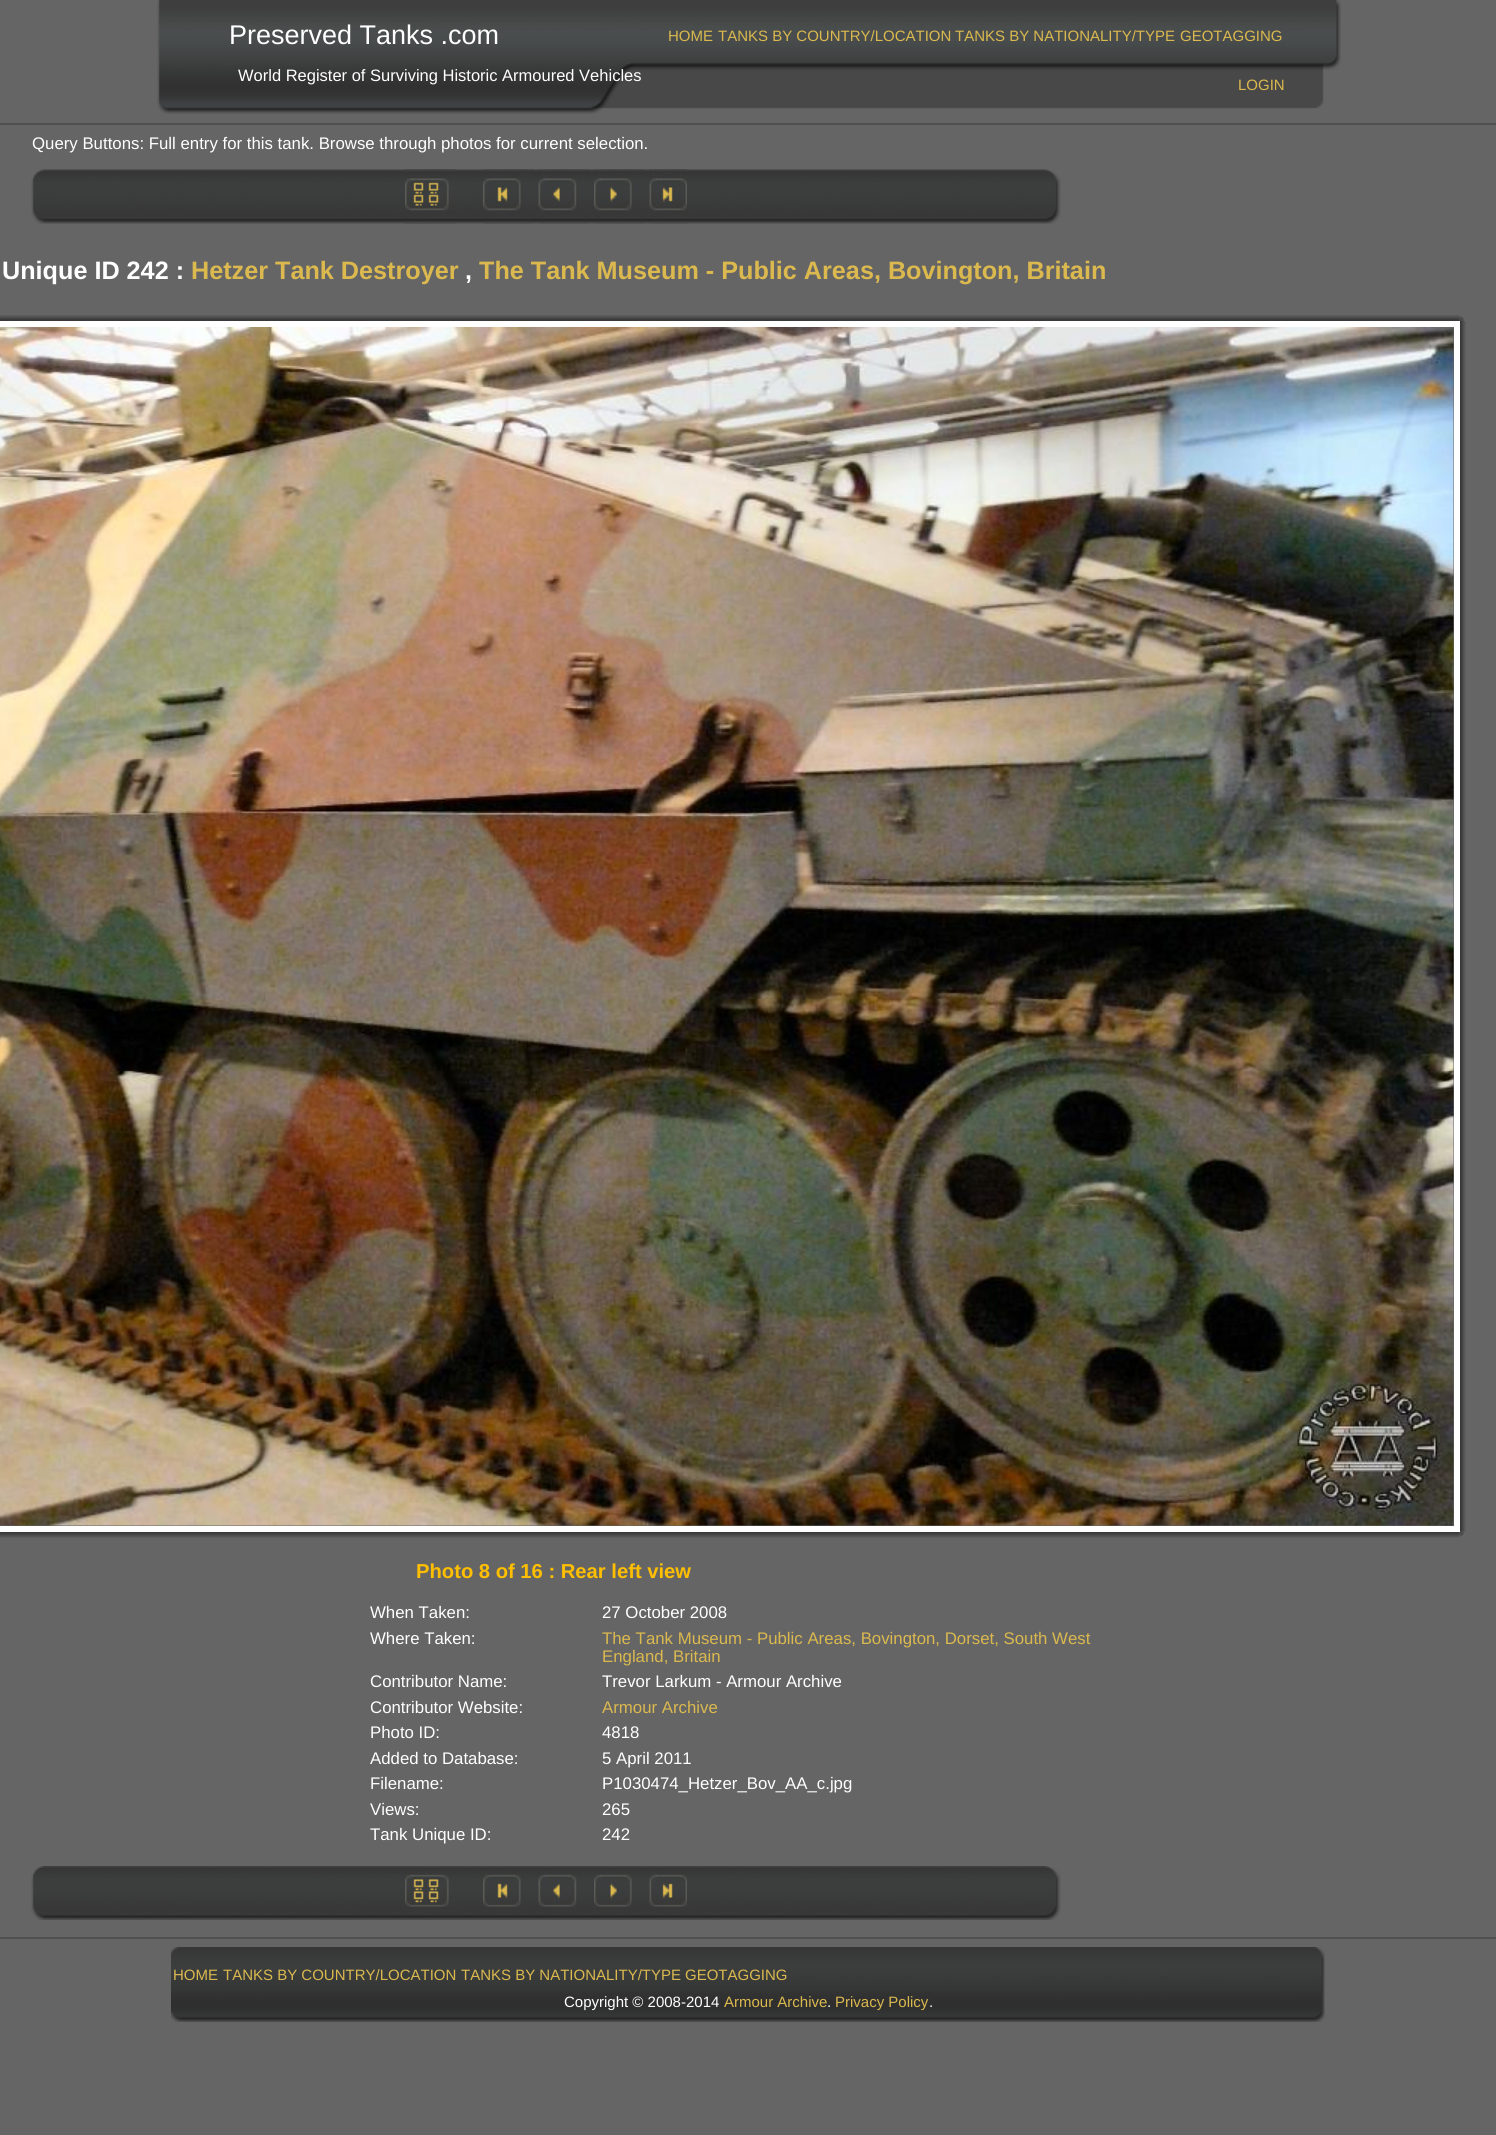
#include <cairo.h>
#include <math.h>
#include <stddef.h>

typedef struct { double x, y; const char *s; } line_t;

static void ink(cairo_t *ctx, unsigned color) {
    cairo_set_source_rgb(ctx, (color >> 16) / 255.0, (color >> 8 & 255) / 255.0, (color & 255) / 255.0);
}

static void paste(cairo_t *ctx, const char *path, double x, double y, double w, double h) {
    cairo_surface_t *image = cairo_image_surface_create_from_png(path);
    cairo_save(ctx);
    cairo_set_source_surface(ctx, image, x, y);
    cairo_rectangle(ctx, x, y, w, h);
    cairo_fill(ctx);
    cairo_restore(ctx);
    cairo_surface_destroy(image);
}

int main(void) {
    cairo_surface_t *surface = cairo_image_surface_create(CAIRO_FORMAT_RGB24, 1496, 2135);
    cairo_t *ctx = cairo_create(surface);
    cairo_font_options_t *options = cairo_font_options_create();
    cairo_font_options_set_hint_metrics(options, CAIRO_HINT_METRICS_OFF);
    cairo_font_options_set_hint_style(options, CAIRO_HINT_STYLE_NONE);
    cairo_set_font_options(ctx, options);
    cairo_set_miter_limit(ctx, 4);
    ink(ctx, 0x656565);
    cairo_paint(ctx);
    paste(ctx, "media/1.png", 157, 0, 1184, 114);
    cairo_select_font_face(ctx, "Liberation Sans", CAIRO_FONT_SLANT_NORMAL, CAIRO_FONT_WEIGHT_NORMAL);
    cairo_set_font_size(ctx, 27);
    ink(ctx, 0xFFFFFF);
    cairo_move_to(ctx, 229, 44);
    cairo_show_text(ctx, "Preserved Tanks .com");
    cairo_set_font_size(ctx, 16.5);
    cairo_move_to(ctx, 238, 81);
    cairo_show_text(ctx, "World Register of Surviving Historic Armoured Vehicles");
    cairo_set_font_size(ctx, 15);
    ink(ctx, 0xDBB94F);
    {
        static const line_t items[] = {
            {668, 41, "HOME"},
            {718, 41, "TANKS BY COUNTRY/LOCATION"},
            {955, 41, "TANKS BY NATIONALITY/TYPE"},
            {1180, 41, "GEOTAGGING"},
            {1238, 90, "LOGIN"},
        };
        for (size_t i = 0; i < sizeof items / sizeof *items; i++) {
            cairo_move_to(ctx, items[i].x, items[i].y);
            cairo_show_text(ctx, items[i].s);
        }
    }
    ink(ctx, 0x505050);
    cairo_rectangle(ctx, 0, 123, 1496, 2);
    cairo_fill(ctx);
    cairo_set_font_size(ctx, 16.8);
    ink(ctx, 0xFFFFFF);
    cairo_move_to(ctx, 32, 149);
    cairo_show_text(ctx, "Query Buttons: Full entry for this tank. Browse through photos for current selection.");
    paste(ctx, "media/2.png", 31, 169, 1030, 55);
    paste(ctx, "media/3.png", 405, 169, 51, 55);
    paste(ctx, "media/4.png", 483, 169, 51, 55);
    paste(ctx, "media/5.png", 538, 169, 52, 55);
    paste(ctx, "media/6.png", 594, 169, 51, 55);
    paste(ctx, "media/7.png", 649, 169, 38, 55);
    cairo_select_font_face(ctx, "Liberation Sans", CAIRO_FONT_SLANT_NORMAL, CAIRO_FONT_WEIGHT_BOLD);
    cairo_set_font_size(ctx, 25.2);
    cairo_move_to(ctx, 2, 279);
    cairo_show_text(ctx, "Unique ID 242 :");
    ink(ctx, 0xDBB94F);
    cairo_move_to(ctx, 191, 279);
    cairo_show_text(ctx, "Hetzer Tank Destroyer");
    ink(ctx, 0xFFFFFF);
    cairo_move_to(ctx, 465, 279);
    cairo_show_text(ctx, ",");
    ink(ctx, 0xDBB94F);
    cairo_move_to(ctx, 479, 279);
    cairo_show_text(ctx, "The Tank Museum - Public Areas, Bovington, Britain");
    paste(ctx, "media/8.png", 0, 315, 1460, 6);
    paste(ctx, "media/9.png", 1459, 316, 5, 5);
    paste(ctx, "media/11.png", 1460, 321, 6, 1211);
    paste(ctx, "media/12.png", 0, 1532, 1460, 6);
    paste(ctx, "media/13.png", 1459, 1531, 5, 5);
    cairo_rectangle(ctx, -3, 324, 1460, 1205);
    ink(ctx, 0xFFFFFF);
    cairo_set_line_width(ctx, 6);
    cairo_stroke(ctx);
    paste(ctx, "media/10.png", 0, 327, 1454, 1199);
    cairo_set_font_size(ctx, 20.2);
    ink(ctx, 0xFFBF00);
    cairo_move_to(ctx, 416, 1578);
    cairo_show_text(ctx, "Photo 8 of 16 : Rear left view");
    cairo_select_font_face(ctx, "Liberation Sans", CAIRO_FONT_SLANT_NORMAL, CAIRO_FONT_WEIGHT_NORMAL);
    cairo_set_font_size(ctx, 16.8);
    ink(ctx, 0xFFFFFF);
    {
        static const line_t items[] = {
            {370, 1618, "When Taken:"},
            {602, 1618, "27 October 2008"},
            {370, 1644, "Where Taken:"},
        };
        for (size_t i = 0; i < sizeof items / sizeof *items; i++) {
            cairo_move_to(ctx, items[i].x, items[i].y);
            cairo_show_text(ctx, items[i].s);
        }
    }
    ink(ctx, 0xDBB94F);
    cairo_move_to(ctx, 602, 1644);
    cairo_show_text(ctx, "The Tank Museum - Public Areas, Bovington, Dorset, South West");
    cairo_move_to(ctx, 602, 1662);
    cairo_show_text(ctx, "England, Britain");
    ink(ctx, 0xFFFFFF);
    {
        static const line_t items[] = {
            {370, 1687, "Contributor Name:"},
            {602, 1687, "Trevor Larkum - Armour Archive"},
            {370, 1713, "Contributor Website:"},
        };
        for (size_t i = 0; i < sizeof items / sizeof *items; i++) {
            cairo_move_to(ctx, items[i].x, items[i].y);
            cairo_show_text(ctx, items[i].s);
        }
    }
    ink(ctx, 0xDBB94F);
    cairo_move_to(ctx, 602, 1713);
    cairo_show_text(ctx, "Armour Archive");
    ink(ctx, 0xFFFFFF);
    {
        static const line_t items[] = {
            {370, 1738, "Photo ID:"},
            {602, 1738, "4818"},
            {370, 1764, "Added to Database:"},
            {602, 1764, "5 April 2011"},
            {370, 1789, "Filename:"},
            {602, 1789, "P1030474_Hetzer_Bov_AA_c.jpg"},
            {370, 1815, "Views:"},
            {602, 1815, "265"},
            {370, 1840, "Tank Unique ID:"},
            {602, 1840, "242"},
        };
        for (size_t i = 0; i < sizeof items / sizeof *items; i++) {
            cairo_move_to(ctx, items[i].x, items[i].y);
            cairo_show_text(ctx, items[i].s);
        }
    }
    paste(ctx, "media/14.png", 31, 1866, 1030, 54);
    paste(ctx, "media/15.png", 405, 1866, 44, 41);
    paste(ctx, "media/16.png", 483, 1866, 38, 41);
    paste(ctx, "media/17.png", 538, 1874, 39, 33);
    paste(ctx, "media/18.png", 594, 1874, 38, 34);
    paste(ctx, "media/19.png", 649, 1874, 38, 33);
    ink(ctx, 0x505050);
    cairo_rectangle(ctx, 0, 1937, 1496, 2);
    cairo_fill(ctx);
    paste(ctx, "media/20.png", 171, 1947, 1154, 75);
    cairo_set_font_size(ctx, 15);
    ink(ctx, 0xDBB94F);
    {
        static const line_t items[] = {
            {173, 1980, "HOME"},
            {223, 1980, "TANKS BY COUNTRY/LOCATION"},
            {461, 1980, "TANKS BY NATIONALITY/TYPE"},
            {685, 1980, "GEOTAGGING"},
        };
        for (size_t i = 0; i < sizeof items / sizeof *items; i++) {
            cairo_move_to(ctx, items[i].x, items[i].y);
            cairo_show_text(ctx, items[i].s);
        }
    }
    ink(ctx, 0xFFFFFF);
    cairo_move_to(ctx, 564, 2007);
    cairo_show_text(ctx, "Copyright © 2008-2014");
    ink(ctx, 0xDBB94F);
    cairo_move_to(ctx, 724, 2007);
    cairo_show_text(ctx, "Armour Archive");
    ink(ctx, 0xFFFFFF);
    cairo_move_to(ctx, 827, 2007);
    cairo_show_text(ctx, ".");
    ink(ctx, 0xDBB94F);
    cairo_move_to(ctx, 835, 2007);
    cairo_show_text(ctx, "Privacy Policy");
    ink(ctx, 0xFFFFFF);
    cairo_move_to(ctx, 929, 2007);
    cairo_show_text(ctx, ".");
    cairo_surface_write_to_png(surface, "image.png");
    cairo_font_options_destroy(options);
    cairo_destroy(ctx);
    cairo_surface_destroy(surface);
    return 0;
}
